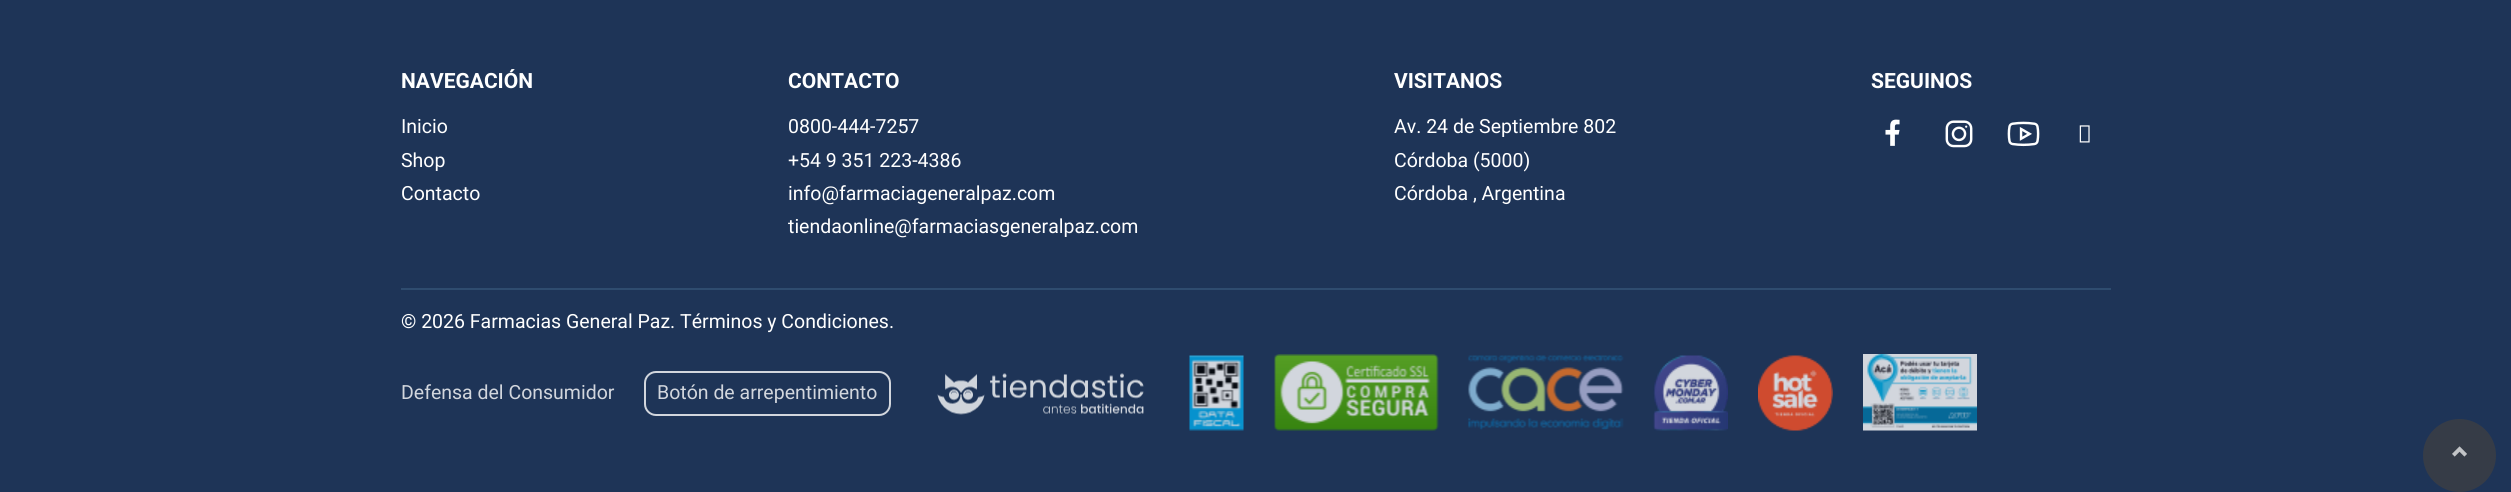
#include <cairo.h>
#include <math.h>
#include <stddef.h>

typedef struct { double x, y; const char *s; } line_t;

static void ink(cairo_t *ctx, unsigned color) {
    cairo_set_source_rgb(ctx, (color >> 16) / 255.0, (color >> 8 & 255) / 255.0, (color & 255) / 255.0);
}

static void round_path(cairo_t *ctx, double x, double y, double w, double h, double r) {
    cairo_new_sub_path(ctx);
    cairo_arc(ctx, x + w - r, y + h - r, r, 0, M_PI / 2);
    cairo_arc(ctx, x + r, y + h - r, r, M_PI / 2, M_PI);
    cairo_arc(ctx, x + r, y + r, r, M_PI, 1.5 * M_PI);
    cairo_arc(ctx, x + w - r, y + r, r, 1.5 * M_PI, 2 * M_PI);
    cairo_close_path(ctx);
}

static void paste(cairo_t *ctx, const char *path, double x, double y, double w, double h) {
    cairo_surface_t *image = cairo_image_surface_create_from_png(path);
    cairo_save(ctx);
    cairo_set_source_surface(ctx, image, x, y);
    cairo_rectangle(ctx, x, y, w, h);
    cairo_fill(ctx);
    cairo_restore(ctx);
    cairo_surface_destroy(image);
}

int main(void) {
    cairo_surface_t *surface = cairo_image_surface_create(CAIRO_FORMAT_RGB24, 2511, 492);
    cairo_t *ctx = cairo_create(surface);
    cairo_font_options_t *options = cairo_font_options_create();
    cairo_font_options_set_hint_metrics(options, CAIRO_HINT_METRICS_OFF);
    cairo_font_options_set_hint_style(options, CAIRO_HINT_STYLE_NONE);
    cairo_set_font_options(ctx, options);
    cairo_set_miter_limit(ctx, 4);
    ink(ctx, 0x1E3457);
    cairo_paint(ctx);
    cairo_select_font_face(ctx, "Roboto", CAIRO_FONT_SLANT_NORMAL, CAIRO_FONT_WEIGHT_BOLD);
    cairo_set_font_size(ctx, 21);
    ink(ctx, 0xFFFFFF);
    cairo_move_to(ctx, 401, 88);
    cairo_show_text(ctx, "NAVEGACIÓN");
    cairo_select_font_face(ctx, "Roboto", CAIRO_FONT_SLANT_NORMAL, CAIRO_FONT_WEIGHT_NORMAL);
    cairo_set_font_size(ctx, 19.5);
    {
        static const line_t items[] = {
            {401, 133, "Inicio"},
            {401, 167, "Shop"},
            {401, 200, "Contacto"},
        };
        for (size_t i = 0; i < sizeof items / sizeof *items; i++) {
            cairo_move_to(ctx, items[i].x, items[i].y);
            cairo_show_text(ctx, items[i].s);
        }
    }
    cairo_select_font_face(ctx, "Roboto", CAIRO_FONT_SLANT_NORMAL, CAIRO_FONT_WEIGHT_BOLD);
    cairo_set_font_size(ctx, 21);
    cairo_move_to(ctx, 788, 88);
    cairo_show_text(ctx, "CONTACTO");
    cairo_select_font_face(ctx, "Roboto", CAIRO_FONT_SLANT_NORMAL, CAIRO_FONT_WEIGHT_NORMAL);
    cairo_set_font_size(ctx, 19.5);
    {
        static const line_t items[] = {
            {788, 133, "0800-444-7257"},
            {788, 167, "+54 9 351 223-4386"},
            {788, 200, "info@farmaciageneralpaz.com"},
            {788, 233, "tiendaonline@farmaciasgeneralpaz.com"},
        };
        for (size_t i = 0; i < sizeof items / sizeof *items; i++) {
            cairo_move_to(ctx, items[i].x, items[i].y);
            cairo_show_text(ctx, items[i].s);
        }
    }
    cairo_select_font_face(ctx, "Roboto", CAIRO_FONT_SLANT_NORMAL, CAIRO_FONT_WEIGHT_BOLD);
    cairo_set_font_size(ctx, 21);
    cairo_move_to(ctx, 1394, 88);
    cairo_show_text(ctx, "VISITANOS");
    cairo_select_font_face(ctx, "Roboto", CAIRO_FONT_SLANT_NORMAL, CAIRO_FONT_WEIGHT_NORMAL);
    cairo_set_font_size(ctx, 19.5);
    {
        static const line_t items[] = {
            {1394, 133, "Av. 24 de Septiembre 802"},
            {1394, 167, "Córdoba (5000)"},
            {1394, 200, "Córdoba , Argentina"},
        };
        for (size_t i = 0; i < sizeof items / sizeof *items; i++) {
            cairo_move_to(ctx, items[i].x, items[i].y);
            cairo_show_text(ctx, items[i].s);
        }
    }
    cairo_select_font_face(ctx, "Roboto", CAIRO_FONT_SLANT_NORMAL, CAIRO_FONT_WEIGHT_BOLD);
    cairo_set_font_size(ctx, 21);
    cairo_move_to(ctx, 1871, 88);
    cairo_show_text(ctx, "SEGUINOS");
    paste(ctx, "media/1.png", 1885, 119, 15, 27);
    paste(ctx, "media/2.png", 1945, 120, 28, 28);
    paste(ctx, "media/3.png", 2007, 121, 33, 26);
    paste(ctx, "media/4.png", 2079, 125, 11, 18);
    ink(ctx, 0x2F4C6F);
    cairo_rectangle(ctx, 401, 288, 1710, 2);
    cairo_fill(ctx);
    cairo_select_font_face(ctx, "Roboto", CAIRO_FONT_SLANT_NORMAL, CAIRO_FONT_WEIGHT_NORMAL);
    cairo_set_font_size(ctx, 19.5);
    ink(ctx, 0xFFFFFF);
    cairo_move_to(ctx, 401, 328);
    cairo_show_text(ctx, "© 2026 Farmacias General Paz. Términos y Condiciones.");
    ink(ctx, 0xD2D6DD);
    cairo_move_to(ctx, 401, 399);
    cairo_show_text(ctx, "Defensa del Consumidor");
    round_path(ctx, 645, 372, 245, 43, 11);
    cairo_stroke(ctx);
    cairo_move_to(ctx, 657, 399);
    cairo_show_text(ctx, "Botón de arrepentimiento");
    paste(ctx, "media/5.png", 937, 373, 207, 42);
    paste(ctx, "media/6.png", 1189, 355, 55, 76);
    paste(ctx, "media/7.png", 1274, 354, 165, 77);
    paste(ctx, "media/8.png", 1468, 355, 156, 75);
    paste(ctx, "media/9.png", 1653, 355, 75, 76);
    paste(ctx, "media/10.png", 1758, 355, 75, 76);
    paste(ctx, "media/11.png", 1863, 354, 114, 77);
    ink(ctx, 0x363C47);
    cairo_arc(ctx, 2459.5, 455.5, 36.5, 0, 2 * M_PI);
    cairo_fill(ctx);
    paste(ctx, "media/12.png", 2452, 446, 15, 11);
    cairo_surface_write_to_png(surface, "image.png");
    cairo_font_options_destroy(options);
    cairo_destroy(ctx);
    cairo_surface_destroy(surface);
    return 0;
}
